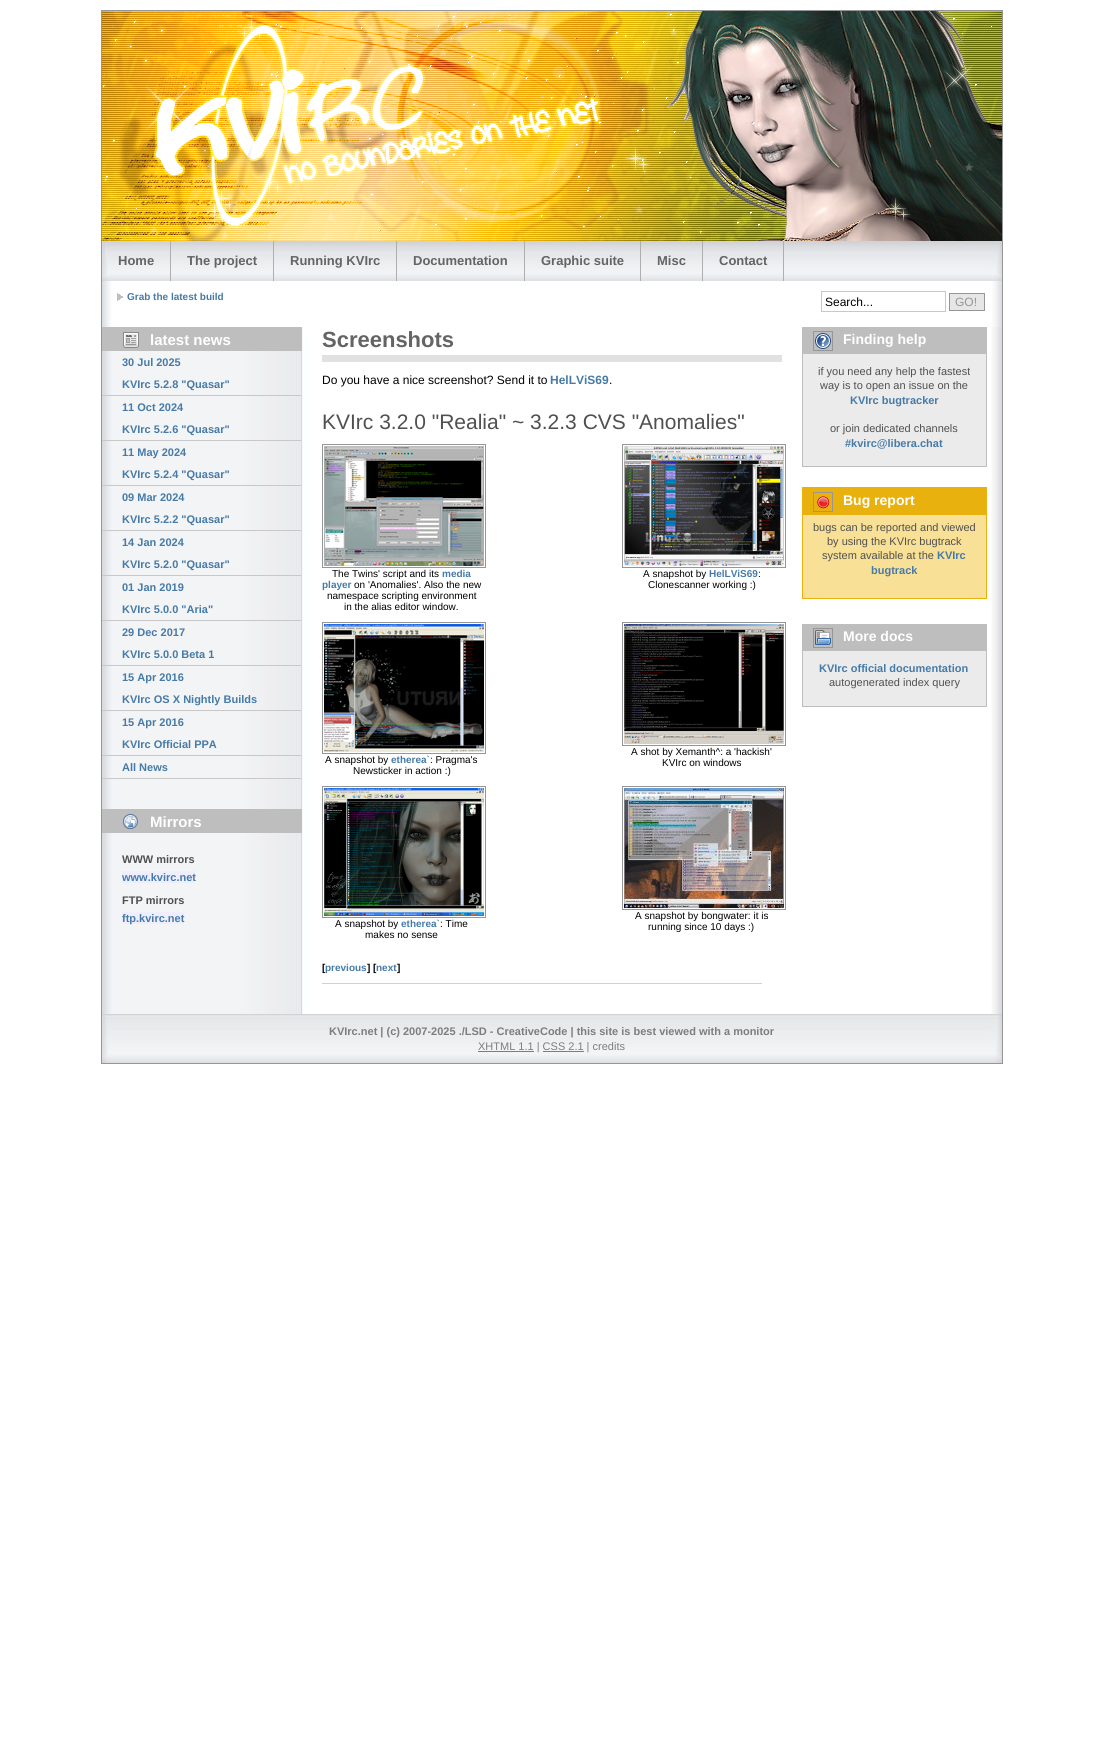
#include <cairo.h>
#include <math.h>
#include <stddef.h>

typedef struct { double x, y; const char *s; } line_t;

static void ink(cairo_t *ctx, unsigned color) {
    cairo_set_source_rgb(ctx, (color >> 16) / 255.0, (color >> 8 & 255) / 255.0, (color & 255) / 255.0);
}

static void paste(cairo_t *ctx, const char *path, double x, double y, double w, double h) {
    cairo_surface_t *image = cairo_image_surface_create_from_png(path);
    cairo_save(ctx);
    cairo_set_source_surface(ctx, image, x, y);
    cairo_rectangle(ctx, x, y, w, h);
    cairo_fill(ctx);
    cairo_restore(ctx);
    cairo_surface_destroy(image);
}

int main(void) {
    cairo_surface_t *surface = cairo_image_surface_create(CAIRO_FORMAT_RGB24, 1103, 1762);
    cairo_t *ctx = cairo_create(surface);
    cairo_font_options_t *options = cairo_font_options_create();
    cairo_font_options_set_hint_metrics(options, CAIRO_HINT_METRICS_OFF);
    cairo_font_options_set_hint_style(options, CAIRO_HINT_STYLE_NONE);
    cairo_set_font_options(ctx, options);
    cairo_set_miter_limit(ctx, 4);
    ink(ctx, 0xFFFFFF);
    cairo_paint(ctx);
    cairo_rectangle(ctx, 101.5, 10.5, 901, 1053);
    ink(ctx, 0x969696);
    cairo_set_line_width(ctx, 1);
    cairo_stroke(ctx);
    paste(ctx, "media/1.png", 102, 11, 900, 80);
    paste(ctx, "media/2.png", 102, 91, 900, 150);
    paste(ctx, "media/3.png", 102, 241, 900, 40);
    ink(ctx, 0xAFAFAF);
    cairo_rectangle(ctx, 170, 241, 1, 40);
    cairo_fill(ctx);
    cairo_select_font_face(ctx, "Liberation Sans", CAIRO_FONT_SLANT_NORMAL, CAIRO_FONT_WEIGHT_BOLD);
    cairo_set_font_size(ctx, 13);
    ink(ctx, 0x646464);
    cairo_move_to(ctx, 118, 265);
    cairo_show_text(ctx, "Home");
    ink(ctx, 0xAFAFAF);
    cairo_rectangle(ctx, 273, 241, 1, 40);
    cairo_fill(ctx);
    ink(ctx, 0x646464);
    cairo_move_to(ctx, 187, 265);
    cairo_show_text(ctx, "The project");
    ink(ctx, 0xAFAFAF);
    cairo_rectangle(ctx, 396, 241, 1, 40);
    cairo_fill(ctx);
    ink(ctx, 0x646464);
    cairo_move_to(ctx, 290, 265);
    cairo_show_text(ctx, "Running KVIrc");
    ink(ctx, 0xAFAFAF);
    cairo_rectangle(ctx, 524, 241, 1, 40);
    cairo_fill(ctx);
    ink(ctx, 0x646464);
    cairo_move_to(ctx, 413, 265);
    cairo_show_text(ctx, "Documentation");
    ink(ctx, 0xAFAFAF);
    cairo_rectangle(ctx, 640, 241, 1, 40);
    cairo_fill(ctx);
    ink(ctx, 0x646464);
    cairo_move_to(ctx, 541, 265);
    cairo_show_text(ctx, "Graphic suite");
    ink(ctx, 0xAFAFAF);
    cairo_rectangle(ctx, 702, 241, 1, 40);
    cairo_fill(ctx);
    ink(ctx, 0x646464);
    cairo_move_to(ctx, 657, 265);
    cairo_show_text(ctx, "Misc");
    ink(ctx, 0xAFAFAF);
    cairo_rectangle(ctx, 783, 241, 1, 40);
    cairo_fill(ctx);
    ink(ctx, 0x646464);
    cairo_move_to(ctx, 719, 265);
    cairo_show_text(ctx, "Contact");
    paste(ctx, "media/4.png", 102, 281, 900, 46);
    paste(ctx, "media/5.png", 117, 293, 6, 8);
    cairo_set_font_size(ctx, 10);
    ink(ctx, 0x467AA7);
    cairo_move_to(ctx, 127, 300);
    cairo_show_text(ctx, "Grab the latest build");
    cairo_rectangle(ctx, 821.5, 291.5, 124, 20);
    ink(ctx, 0xC8C8C8);
    cairo_stroke(ctx);
    cairo_select_font_face(ctx, "Liberation Sans", CAIRO_FONT_SLANT_NORMAL, CAIRO_FONT_WEIGHT_NORMAL);
    cairo_set_font_size(ctx, 12);
    ink(ctx, 0x000000);
    cairo_move_to(ctx, 825, 306);
    cairo_show_text(ctx, "Search...");
    ink(ctx, 0xE6E6E6);
    cairo_rectangle(ctx, 949.5, 293.5, 35, 17);
    cairo_fill_preserve(ctx);
    ink(ctx, 0x969696);
    cairo_stroke(ctx);
    cairo_move_to(ctx, 955, 306);
    cairo_show_text(ctx, "GO!");
    paste(ctx, "media/6.png", 102, 327, 900, 687);
    ink(ctx, 0xBEBEBE);
    cairo_rectangle(ctx, 102, 327, 200, 24);
    cairo_fill(ctx);
    paste(ctx, "media/7.png", 123, 332, 16, 16);
    cairo_select_font_face(ctx, "Liberation Sans", CAIRO_FONT_SLANT_NORMAL, CAIRO_FONT_WEIGHT_BOLD);
    cairo_set_font_size(ctx, 15);
    ink(ctx, 0xFFFFFF);
    cairo_move_to(ctx, 150, 345);
    cairo_show_text(ctx, "latest news");
    ink(ctx, 0xC8C8C8);
    cairo_rectangle(ctx, 102, 395, 199, 1);
    cairo_fill(ctx);
    cairo_set_font_size(ctx, 11);
    ink(ctx, 0x467AA7);
    cairo_move_to(ctx, 122, 366);
    cairo_show_text(ctx, "30 Jul 2025");
    cairo_move_to(ctx, 122, 388);
    cairo_show_text(ctx, "KVIrc 5.2.8 \"Quasar\"");
    ink(ctx, 0xC8C8C8);
    cairo_rectangle(ctx, 102, 440, 199, 1);
    cairo_fill(ctx);
    ink(ctx, 0x467AA7);
    cairo_move_to(ctx, 122, 411);
    cairo_show_text(ctx, "11 Oct 2024");
    cairo_move_to(ctx, 122, 433);
    cairo_show_text(ctx, "KVIrc 5.2.6 \"Quasar\"");
    ink(ctx, 0xC8C8C8);
    cairo_rectangle(ctx, 102, 485, 199, 1);
    cairo_fill(ctx);
    ink(ctx, 0x467AA7);
    cairo_move_to(ctx, 122, 456);
    cairo_show_text(ctx, "11 May 2024");
    cairo_move_to(ctx, 122, 478);
    cairo_show_text(ctx, "KVIrc 5.2.4 \"Quasar\"");
    ink(ctx, 0xC8C8C8);
    cairo_rectangle(ctx, 102, 530, 199, 1);
    cairo_fill(ctx);
    ink(ctx, 0x467AA7);
    cairo_move_to(ctx, 122, 501);
    cairo_show_text(ctx, "09 Mar 2024");
    cairo_move_to(ctx, 122, 523);
    cairo_show_text(ctx, "KVIrc 5.2.2 \"Quasar\"");
    ink(ctx, 0xC8C8C8);
    cairo_rectangle(ctx, 102, 575, 199, 1);
    cairo_fill(ctx);
    ink(ctx, 0x467AA7);
    cairo_move_to(ctx, 122, 546);
    cairo_show_text(ctx, "14 Jan 2024");
    cairo_move_to(ctx, 122, 568);
    cairo_show_text(ctx, "KVIrc 5.2.0 \"Quasar\"");
    ink(ctx, 0xC8C8C8);
    cairo_rectangle(ctx, 102, 620, 199, 1);
    cairo_fill(ctx);
    ink(ctx, 0x467AA7);
    cairo_move_to(ctx, 122, 591);
    cairo_show_text(ctx, "01 Jan 2019");
    cairo_move_to(ctx, 122, 613);
    cairo_show_text(ctx, "KVIrc 5.0.0 \"Aria\"");
    ink(ctx, 0xC8C8C8);
    cairo_rectangle(ctx, 102, 665, 199, 1);
    cairo_fill(ctx);
    ink(ctx, 0x467AA7);
    cairo_move_to(ctx, 122, 636);
    cairo_show_text(ctx, "29 Dec 2017");
    cairo_move_to(ctx, 122, 658);
    cairo_show_text(ctx, "KVIrc 5.0.0 Beta 1");
    ink(ctx, 0xC8C8C8);
    cairo_rectangle(ctx, 102, 710, 199, 1);
    cairo_fill(ctx);
    ink(ctx, 0x467AA7);
    cairo_move_to(ctx, 122, 681);
    cairo_show_text(ctx, "15 Apr 2016");
    cairo_move_to(ctx, 122, 703);
    cairo_show_text(ctx, "KVIrc OS X Nightly Builds");
    ink(ctx, 0xC8C8C8);
    cairo_rectangle(ctx, 102, 755, 199, 1);
    cairo_fill(ctx);
    ink(ctx, 0x467AA7);
    cairo_move_to(ctx, 122, 726);
    cairo_show_text(ctx, "15 Apr 2016");
    cairo_move_to(ctx, 122, 748);
    cairo_show_text(ctx, "KVIrc Official PPA");
    ink(ctx, 0xC8C8C8);
    cairo_rectangle(ctx, 102, 778, 199, 1);
    cairo_fill(ctx);
    ink(ctx, 0x467AA7);
    cairo_move_to(ctx, 122, 771);
    cairo_show_text(ctx, "All News");
    ink(ctx, 0xBEBEBE);
    cairo_rectangle(ctx, 102, 809, 200, 24);
    cairo_fill(ctx);
    paste(ctx, "media/8.png", 123, 814, 15, 15);
    cairo_set_font_size(ctx, 15);
    ink(ctx, 0xFFFFFF);
    cairo_move_to(ctx, 150, 827);
    cairo_show_text(ctx, "Mirrors");
    cairo_set_font_size(ctx, 11);
    ink(ctx, 0x505050);
    cairo_move_to(ctx, 122, 863);
    cairo_show_text(ctx, "WWW mirrors");
    ink(ctx, 0xEEEEFF);
    cairo_rectangle(ctx, 122, 871, 73, 12);
    cairo_fill(ctx);
    ink(ctx, 0x467AA7);
    cairo_move_to(ctx, 122, 881);
    cairo_show_text(ctx, "www.kvirc.net");
    ink(ctx, 0x505050);
    cairo_move_to(ctx, 122, 904);
    cairo_show_text(ctx, "FTP mirrors");
    ink(ctx, 0xEEEEFF);
    cairo_rectangle(ctx, 122, 912, 62, 12);
    cairo_fill(ctx);
    ink(ctx, 0x467AA7);
    cairo_move_to(ctx, 122, 922);
    cairo_show_text(ctx, "ftp.kvirc.net");
    ink(ctx, 0xE1E1E1);
    cairo_rectangle(ctx, 322, 355, 460, 7);
    cairo_fill(ctx);
    cairo_set_font_size(ctx, 22);
    ink(ctx, 0x646464);
    cairo_move_to(ctx, 322, 347);
    cairo_show_text(ctx, "Screenshots");
    cairo_select_font_face(ctx, "Liberation Sans", CAIRO_FONT_SLANT_NORMAL, CAIRO_FONT_WEIGHT_NORMAL);
    cairo_set_font_size(ctx, 12);
    ink(ctx, 0x000000);
    cairo_move_to(ctx, 322, 384);
    cairo_show_text(ctx, "Do you have a nice screenshot? Send it to");
    cairo_select_font_face(ctx, "Liberation Sans", CAIRO_FONT_SLANT_NORMAL, CAIRO_FONT_WEIGHT_BOLD);
    ink(ctx, 0x467AA7);
    cairo_move_to(ctx, 550, 384);
    cairo_show_text(ctx, "HelLViS69");
    cairo_select_font_face(ctx, "Liberation Sans", CAIRO_FONT_SLANT_NORMAL, CAIRO_FONT_WEIGHT_NORMAL);
    ink(ctx, 0x000000);
    cairo_move_to(ctx, 609, 384);
    cairo_show_text(ctx, ".");
    cairo_set_font_size(ctx, 21);
    ink(ctx, 0x505050);
    cairo_move_to(ctx, 322, 429);
    cairo_show_text(ctx, "KVIrc 3.2.0 \"Realia\" ~ 3.2.3 CVS \"Anomalies\"");
    cairo_rectangle(ctx, 322.5, 444.5, 163, 123);
    ink(ctx, 0x969696);
    cairo_stroke(ctx);
    paste(ctx, "media/9.png", 324, 446, 160, 120);
    cairo_set_font_size(ctx, 10);
    ink(ctx, 0x000000);
    cairo_move_to(ctx, 332, 577);
    cairo_show_text(ctx, "The Twins' script and its");
    cairo_select_font_face(ctx, "Liberation Sans", CAIRO_FONT_SLANT_NORMAL, CAIRO_FONT_WEIGHT_BOLD);
    ink(ctx, 0x467AA7);
    cairo_move_to(ctx, 442, 577);
    cairo_show_text(ctx, "media");
    cairo_move_to(ctx, 322, 588);
    cairo_show_text(ctx, "player");
    cairo_select_font_face(ctx, "Liberation Sans", CAIRO_FONT_SLANT_NORMAL, CAIRO_FONT_WEIGHT_NORMAL);
    ink(ctx, 0x000000);
    {
        static const line_t items[] = {
            {354, 588, "on 'Anomalies'. Also the new"},
            {327, 599, "namespace scripting environment"},
            {344, 610, "in the alias editor window."},
        };
        for (size_t i = 0; i < sizeof items / sizeof *items; i++) {
            cairo_move_to(ctx, items[i].x, items[i].y);
            cairo_show_text(ctx, items[i].s);
        }
    }
    cairo_rectangle(ctx, 622.5, 444.5, 163, 123);
    ink(ctx, 0x969696);
    cairo_stroke(ctx);
    paste(ctx, "media/10.png", 624, 446, 160, 120);
    ink(ctx, 0x000000);
    cairo_move_to(ctx, 643, 577);
    cairo_show_text(ctx, "A snapshot by");
    cairo_select_font_face(ctx, "Liberation Sans", CAIRO_FONT_SLANT_NORMAL, CAIRO_FONT_WEIGHT_BOLD);
    ink(ctx, 0x467AA7);
    cairo_move_to(ctx, 709, 577);
    cairo_show_text(ctx, "HelLViS69");
    cairo_select_font_face(ctx, "Liberation Sans", CAIRO_FONT_SLANT_NORMAL, CAIRO_FONT_WEIGHT_NORMAL);
    ink(ctx, 0x000000);
    cairo_move_to(ctx, 758, 577);
    cairo_show_text(ctx, ":");
    cairo_move_to(ctx, 648, 588);
    cairo_show_text(ctx, "Clonescanner working :)");
    cairo_rectangle(ctx, 322.5, 622.5, 163, 131);
    ink(ctx, 0x969696);
    cairo_stroke(ctx);
    paste(ctx, "media/11.png", 324, 624, 160, 128);
    ink(ctx, 0x000000);
    cairo_move_to(ctx, 325, 763);
    cairo_show_text(ctx, "A snapshot by");
    cairo_select_font_face(ctx, "Liberation Sans", CAIRO_FONT_SLANT_NORMAL, CAIRO_FONT_WEIGHT_BOLD);
    ink(ctx, 0x467AA7);
    cairo_move_to(ctx, 391, 763);
    cairo_show_text(ctx, "etherea`");
    cairo_select_font_face(ctx, "Liberation Sans", CAIRO_FONT_SLANT_NORMAL, CAIRO_FONT_WEIGHT_NORMAL);
    ink(ctx, 0x000000);
    cairo_move_to(ctx, 430, 763);
    cairo_show_text(ctx, ": Pragma's");
    cairo_move_to(ctx, 353, 774);
    cairo_show_text(ctx, "Newsticker in action :)");
    cairo_rectangle(ctx, 622.5, 622.5, 163, 123);
    ink(ctx, 0x969696);
    cairo_stroke(ctx);
    paste(ctx, "media/12.png", 624, 624, 160, 120);
    ink(ctx, 0x000000);
    cairo_move_to(ctx, 631, 755);
    cairo_show_text(ctx, "A shot by Xemanth^: a 'hackish'");
    cairo_move_to(ctx, 662, 766);
    cairo_show_text(ctx, "KVIrc on windows");
    cairo_rectangle(ctx, 322.5, 786.5, 163, 131);
    ink(ctx, 0x969696);
    cairo_stroke(ctx);
    paste(ctx, "media/13.png", 324, 788, 160, 128);
    ink(ctx, 0x000000);
    cairo_move_to(ctx, 335, 927);
    cairo_show_text(ctx, "A snapshot by");
    cairo_select_font_face(ctx, "Liberation Sans", CAIRO_FONT_SLANT_NORMAL, CAIRO_FONT_WEIGHT_BOLD);
    ink(ctx, 0x467AA7);
    cairo_move_to(ctx, 401, 927);
    cairo_show_text(ctx, "etherea`");
    cairo_select_font_face(ctx, "Liberation Sans", CAIRO_FONT_SLANT_NORMAL, CAIRO_FONT_WEIGHT_NORMAL);
    ink(ctx, 0x000000);
    cairo_move_to(ctx, 440, 927);
    cairo_show_text(ctx, ": Time");
    cairo_move_to(ctx, 365, 938);
    cairo_show_text(ctx, "makes no sense");
    cairo_rectangle(ctx, 622.5, 786.5, 163, 123);
    ink(ctx, 0x969696);
    cairo_stroke(ctx);
    paste(ctx, "media/14.png", 624, 788, 160, 120);
    ink(ctx, 0x000000);
    cairo_move_to(ctx, 635, 919);
    cairo_show_text(ctx, "A snapshot by bongwater: it is");
    cairo_move_to(ctx, 648, 930);
    cairo_show_text(ctx, "running since 10 days :)");
    cairo_select_font_face(ctx, "Liberation Sans", CAIRO_FONT_SLANT_NORMAL, CAIRO_FONT_WEIGHT_BOLD);
    cairo_move_to(ctx, 322, 971);
    cairo_show_text(ctx, "[");
    ink(ctx, 0x467AA7);
    cairo_move_to(ctx, 325, 971);
    cairo_show_text(ctx, "previous");
    ink(ctx, 0x000000);
    cairo_move_to(ctx, 367, 971);
    cairo_show_text(ctx, "] [");
    ink(ctx, 0x467AA7);
    cairo_move_to(ctx, 376, 971);
    cairo_show_text(ctx, "next");
    ink(ctx, 0x000000);
    cairo_move_to(ctx, 397, 971);
    cairo_show_text(ctx, "]");
    ink(ctx, 0xD2D2D2);
    cairo_rectangle(ctx, 322, 983, 440, 1);
    cairo_fill(ctx);
    ink(ctx, 0xEBEBEB);
    cairo_rectangle(ctx, 803, 354, 183, 112);
    cairo_fill(ctx);
    cairo_rectangle(ctx, 802.5, 327.5, 184, 139);
    ink(ctx, 0xBEBEBE);
    cairo_stroke(ctx);
    cairo_rectangle(ctx, 803, 328, 183, 26);
    cairo_fill(ctx);
    cairo_rectangle(ctx, 813.5, 331.5, 19, 19);
    ink(ctx, 0x969696);
    cairo_stroke(ctx);
    paste(ctx, "media/15.png", 815, 333, 16, 16);
    cairo_set_font_size(ctx, 14);
    ink(ctx, 0xFFFFFF);
    cairo_move_to(ctx, 843, 344);
    cairo_show_text(ctx, "Finding help");
    cairo_select_font_face(ctx, "Liberation Sans", CAIRO_FONT_SLANT_NORMAL, CAIRO_FONT_WEIGHT_NORMAL);
    cairo_set_font_size(ctx, 11);
    ink(ctx, 0x505050);
    cairo_move_to(ctx, 818, 375);
    cairo_show_text(ctx, "if you need any help the fastest");
    cairo_move_to(ctx, 820, 389);
    cairo_show_text(ctx, "way is to open an issue on the");
    cairo_select_font_face(ctx, "Liberation Sans", CAIRO_FONT_SLANT_NORMAL, CAIRO_FONT_WEIGHT_BOLD);
    ink(ctx, 0x467AA7);
    cairo_move_to(ctx, 850, 404);
    cairo_show_text(ctx, "KVIrc bugtracker");
    cairo_select_font_face(ctx, "Liberation Sans", CAIRO_FONT_SLANT_NORMAL, CAIRO_FONT_WEIGHT_NORMAL);
    ink(ctx, 0x505050);
    cairo_move_to(ctx, 830, 432);
    cairo_show_text(ctx, "or join dedicated channels");
    cairo_select_font_face(ctx, "Liberation Sans", CAIRO_FONT_SLANT_NORMAL, CAIRO_FONT_WEIGHT_BOLD);
    ink(ctx, 0x467AA7);
    cairo_move_to(ctx, 845, 447);
    cairo_show_text(ctx, "#kvirc@libera.chat");
    ink(ctx, 0xF8E096);
    cairo_rectangle(ctx, 803, 515, 183, 83);
    cairo_fill(ctx);
    cairo_rectangle(ctx, 802.5, 487.5, 184, 111);
    ink(ctx, 0xE8B10D);
    cairo_stroke(ctx);
    cairo_rectangle(ctx, 803, 488, 183, 27);
    cairo_fill(ctx);
    cairo_rectangle(ctx, 813.5, 492.5, 19, 19);
    ink(ctx, 0x969696);
    cairo_stroke(ctx);
    paste(ctx, "media/16.png", 817, 496, 13, 13);
    cairo_set_font_size(ctx, 14);
    ink(ctx, 0xFFFFFF);
    cairo_move_to(ctx, 843, 505);
    cairo_show_text(ctx, "Bug report");
    cairo_select_font_face(ctx, "Liberation Sans", CAIRO_FONT_SLANT_NORMAL, CAIRO_FONT_WEIGHT_NORMAL);
    cairo_set_font_size(ctx, 11);
    ink(ctx, 0x505050);
    {
        static const line_t items[] = {
            {813, 531, "bugs can be reported and viewed"},
            {827, 545, "by using the KVIrc bugtrack"},
            {822, 559, "system available at the"},
        };
        for (size_t i = 0; i < sizeof items / sizeof *items; i++) {
            cairo_move_to(ctx, items[i].x, items[i].y);
            cairo_show_text(ctx, items[i].s);
        }
    }
    cairo_select_font_face(ctx, "Liberation Sans", CAIRO_FONT_SLANT_NORMAL, CAIRO_FONT_WEIGHT_BOLD);
    ink(ctx, 0x467AA7);
    cairo_move_to(ctx, 937, 559);
    cairo_show_text(ctx, "KVIrc");
    cairo_move_to(ctx, 871, 574);
    cairo_show_text(ctx, "bugtrack");
    ink(ctx, 0xEBEBEB);
    cairo_rectangle(ctx, 803, 651, 183, 55);
    cairo_fill(ctx);
    cairo_rectangle(ctx, 802.5, 624.5, 184, 82);
    ink(ctx, 0xBEBEBE);
    cairo_stroke(ctx);
    cairo_rectangle(ctx, 803, 625, 183, 26);
    cairo_fill(ctx);
    cairo_rectangle(ctx, 813.5, 628.5, 19, 19);
    ink(ctx, 0x969696);
    cairo_stroke(ctx);
    paste(ctx, "media/17.png", 815, 630, 16, 15);
    cairo_set_font_size(ctx, 14);
    ink(ctx, 0xFFFFFF);
    cairo_move_to(ctx, 843, 641);
    cairo_show_text(ctx, "More docs");
    cairo_set_font_size(ctx, 11);
    ink(ctx, 0x467AA7);
    cairo_move_to(ctx, 819, 672);
    cairo_show_text(ctx, "KVIrc official documentation");
    cairo_select_font_face(ctx, "Liberation Sans", CAIRO_FONT_SLANT_NORMAL, CAIRO_FONT_WEIGHT_NORMAL);
    ink(ctx, 0x505050);
    cairo_move_to(ctx, 829, 686);
    cairo_show_text(ctx, "autogenerated index query");
    paste(ctx, "media/18.png", 102, 1014, 900, 49);
    cairo_select_font_face(ctx, "Liberation Sans", CAIRO_FONT_SLANT_NORMAL, CAIRO_FONT_WEIGHT_BOLD);
    ink(ctx, 0x7D7D7D);
    cairo_move_to(ctx, 329, 1035);
    cairo_show_text(ctx, "KVIrc.net | (c) 2007-2025 ./LSD - CreativeCode | this site is best viewed with a monitor");
    cairo_rectangle(ctx, 478, 1051, 56, 1);
    cairo_fill(ctx);
    cairo_select_font_face(ctx, "Liberation Sans", CAIRO_FONT_SLANT_NORMAL, CAIRO_FONT_WEIGHT_NORMAL);
    cairo_move_to(ctx, 478, 1050);
    cairo_show_text(ctx, "XHTML 1.1 | CSS 2.1 | credits");
    cairo_rectangle(ctx, 543, 1051, 41, 1);
    cairo_fill(ctx);
    cairo_surface_write_to_png(surface, "image.png");
    cairo_font_options_destroy(options);
    cairo_destroy(ctx);
    cairo_surface_destroy(surface);
    return 0;
}
